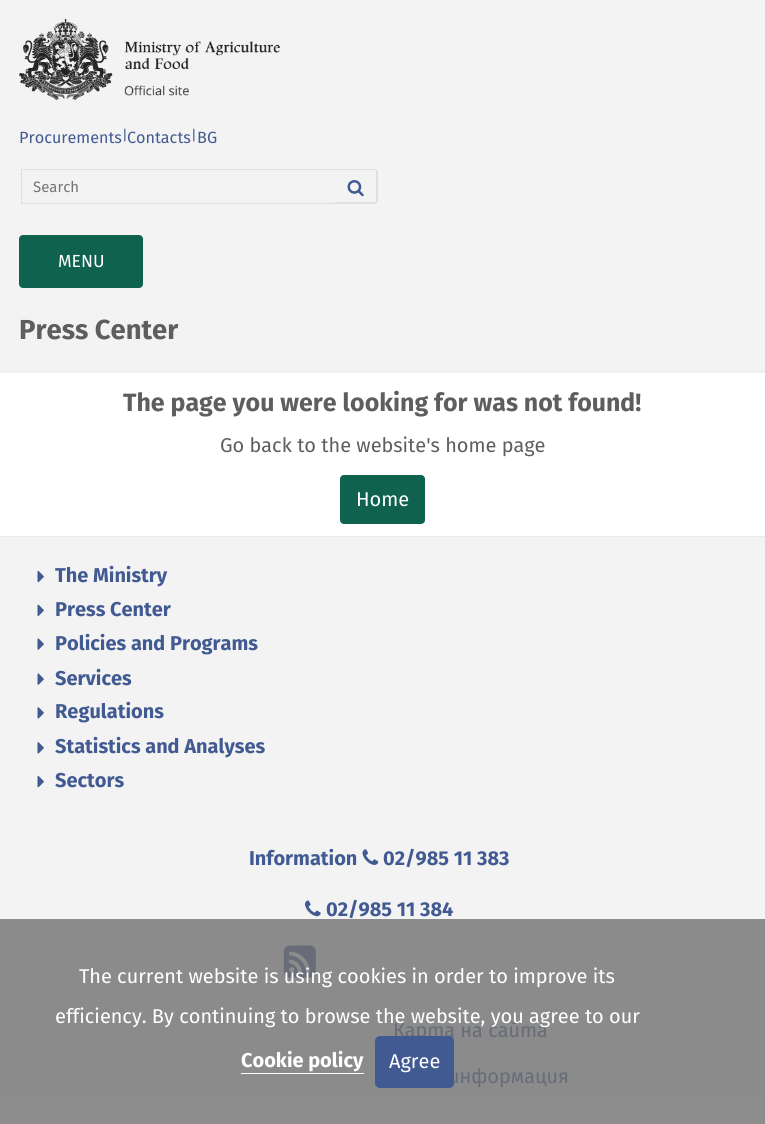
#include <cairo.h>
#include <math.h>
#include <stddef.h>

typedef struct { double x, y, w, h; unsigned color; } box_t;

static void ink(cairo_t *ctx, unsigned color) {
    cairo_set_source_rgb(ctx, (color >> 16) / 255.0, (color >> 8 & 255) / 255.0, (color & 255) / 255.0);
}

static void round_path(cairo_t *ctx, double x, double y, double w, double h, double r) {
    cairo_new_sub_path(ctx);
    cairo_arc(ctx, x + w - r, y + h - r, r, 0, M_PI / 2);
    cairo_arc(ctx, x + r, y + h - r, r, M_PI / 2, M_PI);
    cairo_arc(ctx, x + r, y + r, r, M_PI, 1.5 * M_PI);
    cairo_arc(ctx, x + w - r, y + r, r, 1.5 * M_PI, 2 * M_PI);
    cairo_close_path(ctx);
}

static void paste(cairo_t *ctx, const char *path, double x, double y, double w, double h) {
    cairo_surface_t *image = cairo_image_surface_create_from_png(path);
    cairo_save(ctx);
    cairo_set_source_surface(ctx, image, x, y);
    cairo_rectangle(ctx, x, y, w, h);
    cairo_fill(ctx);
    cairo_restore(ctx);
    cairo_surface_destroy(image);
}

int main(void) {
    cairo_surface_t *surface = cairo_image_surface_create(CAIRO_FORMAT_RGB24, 765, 1124);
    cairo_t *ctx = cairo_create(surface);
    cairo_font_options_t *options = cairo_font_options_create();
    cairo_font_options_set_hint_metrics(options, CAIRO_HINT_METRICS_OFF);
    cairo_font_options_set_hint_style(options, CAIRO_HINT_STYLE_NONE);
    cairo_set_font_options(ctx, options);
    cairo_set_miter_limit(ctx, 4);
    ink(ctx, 0xFFFFFF);
    cairo_paint(ctx);
    {
        static const box_t items[] = {
            {0, 1095, 765, 29, 0x8D8D8D},
            {0, 0, 765, 373, 0xF3F3F3},
            {0, 371, 765, 1, 0xEAEAEA},
        };
        for (size_t i = 0; i < sizeof items / sizeof *items; i++) {
            ink(ctx, items[i].color);
            cairo_rectangle(ctx, items[i].x, items[i].y, items[i].w, items[i].h);
            cairo_fill(ctx);
        }
    }
    paste(ctx, "media/1.png", 19, 18, 261, 83);
    cairo_select_font_face(ctx, "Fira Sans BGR", CAIRO_FONT_SLANT_NORMAL, CAIRO_FONT_WEIGHT_NORMAL);
    cairo_set_font_size(ctx, 16.25);
    ink(ctx, 0x415A92);
    cairo_move_to(ctx, 19, 143);
    cairo_show_text(ctx, "Procurements");
    cairo_set_font_size(ctx, 14);
    cairo_move_to(ctx, 122, 140);
    cairo_show_text(ctx, "|");
    cairo_set_font_size(ctx, 16.25);
    cairo_move_to(ctx, 127, 143);
    cairo_show_text(ctx, "Contacts");
    cairo_set_font_size(ctx, 14);
    cairo_move_to(ctx, 191, 140);
    cairo_show_text(ctx, "|");
    cairo_set_font_size(ctx, 16.25);
    cairo_move_to(ctx, 197, 143);
    cairo_show_text(ctx, "BG");
    ink(ctx, 0xDFDFDF);
    cairo_set_fill_rule(ctx, CAIRO_FILL_RULE_EVEN_ODD);
    cairo_new_path(ctx);
    cairo_move_to(ctx, 335, 169);
    cairo_line_to(ctx, 374, 169);
    cairo_curve_to(ctx, 376, 169, 378, 170, 378, 172);
    cairo_line_to(ctx, 378, 200);
    cairo_curve_to(ctx, 378, 202, 376, 204, 374, 204);
    cairo_line_to(ctx, 335, 204);
    cairo_close_path(ctx);
    cairo_move_to(ctx, 335, 170);
    cairo_line_to(ctx, 374, 170);
    cairo_curve_to(ctx, 375, 170, 376, 171, 376, 172);
    cairo_line_to(ctx, 376, 200);
    cairo_curve_to(ctx, 376, 201, 375, 202, 374, 202);
    cairo_line_to(ctx, 335, 202);
    cairo_close_path(ctx);
    cairo_fill(ctx);
    {
        static const box_t items[] = {
            {21, 169, 315, 1, 0xDFDFDF},
            {21, 203, 315, 1, 0xDFDFDF},
            {21, 169, 1, 35, 0xDFDFDF},
        };
        for (size_t i = 0; i < sizeof items / sizeof *items; i++) {
            ink(ctx, items[i].color);
            cairo_rectangle(ctx, items[i].x, items[i].y, items[i].w, items[i].h);
            cairo_fill(ctx);
        }
    }
    cairo_set_font_size(ctx, 15);
    ink(ctx, 0x747474);
    cairo_move_to(ctx, 33, 192);
    cairo_show_text(ctx, "Search");
    paste(ctx, "media/2.png", 347, 180, 17, 17);
    ink(ctx, 0x0E624E);
    round_path(ctx, 19.5, 235.5, 123, 52, 3.5);
    cairo_fill_preserve(ctx);
    cairo_set_line_width(ctx, 1);
    cairo_stroke(ctx);
    cairo_set_font_size(ctx, 17.5);
    ink(ctx, 0xFFFFFF);
    cairo_move_to(ctx, 58, 267);
    cairo_show_text(ctx, "MENU");
    cairo_select_font_face(ctx, "Fira Sans BGR", CAIRO_FONT_SLANT_NORMAL, CAIRO_FONT_WEIGHT_BOLD);
    cairo_set_font_size(ctx, 27.5);
    ink(ctx, 0x5E5E5E);
    cairo_move_to(ctx, 19, 339);
    cairo_show_text(ctx, "Press Center");
    cairo_set_font_size(ctx, 25);
    cairo_move_to(ctx, 123, 411);
    cairo_show_text(ctx, "The page you were looking for was not found!");
    cairo_select_font_face(ctx, "Fira Sans BGR", CAIRO_FONT_SLANT_NORMAL, CAIRO_FONT_WEIGHT_NORMAL);
    cairo_set_font_size(ctx, 20);
    cairo_move_to(ctx, 220, 452);
    cairo_show_text(ctx, "Go back to the website's home page");
    ink(ctx, 0x0E624E);
    round_path(ctx, 340.5, 475.5, 84, 48, 3.5);
    cairo_fill_preserve(ctx);
    cairo_stroke(ctx);
    ink(ctx, 0xFFFFFF);
    cairo_move_to(ctx, 356, 506);
    cairo_show_text(ctx, "Home");
    {
        static const box_t items[] = {
            {0, 537, 765, 382, 0xF3F3F3},
            {0, 919, 765, 176, 0x8B8B8B},
            {0, 536, 765, 1, 0xEAEAEA},
        };
        for (size_t i = 0; i < sizeof items / sizeof *items; i++) {
            ink(ctx, items[i].color);
            cairo_rectangle(ctx, items[i].x, items[i].y, items[i].w, items[i].h);
            cairo_fill(ctx);
        }
    }
    paste(ctx, "media/3.png", 37, 570, 7, 13);
    cairo_select_font_face(ctx, "Fira Sans BGR", CAIRO_FONT_SLANT_NORMAL, CAIRO_FONT_WEIGHT_BOLD);
    ink(ctx, 0x415A92);
    cairo_move_to(ctx, 55, 582);
    cairo_show_text(ctx, "The Ministry");
    paste(ctx, "media/4.png", 37, 604, 7, 12);
    cairo_move_to(ctx, 55, 616);
    cairo_show_text(ctx, "Press Center");
    paste(ctx, "media/5.png", 37, 638, 7, 12);
    cairo_move_to(ctx, 55, 650);
    cairo_show_text(ctx, "Policies and Programs");
    paste(ctx, "media/5.png", 37, 673, 7, 12);
    cairo_move_to(ctx, 55, 685);
    cairo_show_text(ctx, "Services");
    paste(ctx, "media/6.png", 37, 707, 7, 12);
    cairo_move_to(ctx, 55, 718);
    cairo_show_text(ctx, "Regulations");
    paste(ctx, "media/6.png", 37, 742, 7, 12);
    cairo_move_to(ctx, 55, 753);
    cairo_show_text(ctx, "Statistics and Analyses");
    paste(ctx, "media/3.png", 37, 775, 7, 13);
    cairo_move_to(ctx, 55, 787);
    cairo_show_text(ctx, "Sectors");
    cairo_move_to(ctx, 249, 865);
    cairo_show_text(ctx, "Information");
    paste(ctx, "media/7.png", 362, 849, 17, 16);
    cairo_move_to(ctx, 383, 865);
    cairo_show_text(ctx, "02/985 11 383");
    paste(ctx, "media/8.png", 305, 900, 16, 17);
    cairo_move_to(ctx, 326, 916);
    cairo_show_text(ctx, "02/985 11 384");
    paste(ctx, "media/9.png", 283, 945, 33, 33);
    cairo_select_font_face(ctx, "Fira Sans BGR", CAIRO_FONT_SLANT_NORMAL, CAIRO_FONT_WEIGHT_NORMAL);
    ink(ctx, 0x676C78);
    cairo_move_to(ctx, 393, 1037);
    cairo_show_text(ctx, "Карта на сайта");
    cairo_move_to(ctx, 448, 1083);
    cairo_show_text(ctx, "информация");
    ink(ctx, 0xFFFFFF);
    cairo_move_to(ctx, 79, 983);
    cairo_show_text(ctx, "The current website is using cookies in order to improve its");
    cairo_move_to(ctx, 55, 1023);
    cairo_show_text(ctx, "efficiency. By continuing to browse the website, you agree to our");
    cairo_select_font_face(ctx, "Fira Sans BGR", CAIRO_FONT_SLANT_NORMAL, CAIRO_FONT_WEIGHT_BOLD);
    cairo_move_to(ctx, 241, 1067);
    cairo_show_text(ctx, "Cookie policy");
    cairo_rectangle(ctx, 241, 1073, 123, 1);
    cairo_fill(ctx);
    ink(ctx, 0x415A92);
    round_path(ctx, 375, 1036, 79, 52, 5);
    cairo_fill(ctx);
    cairo_select_font_face(ctx, "Fira Sans BGR", CAIRO_FONT_SLANT_NORMAL, CAIRO_FONT_WEIGHT_NORMAL);
    ink(ctx, 0xFFFFFF);
    cairo_move_to(ctx, 389, 1068);
    cairo_show_text(ctx, "Agree");
    cairo_surface_write_to_png(surface, "image.png");
    cairo_font_options_destroy(options);
    cairo_destroy(ctx);
    cairo_surface_destroy(surface);
    return 0;
}
